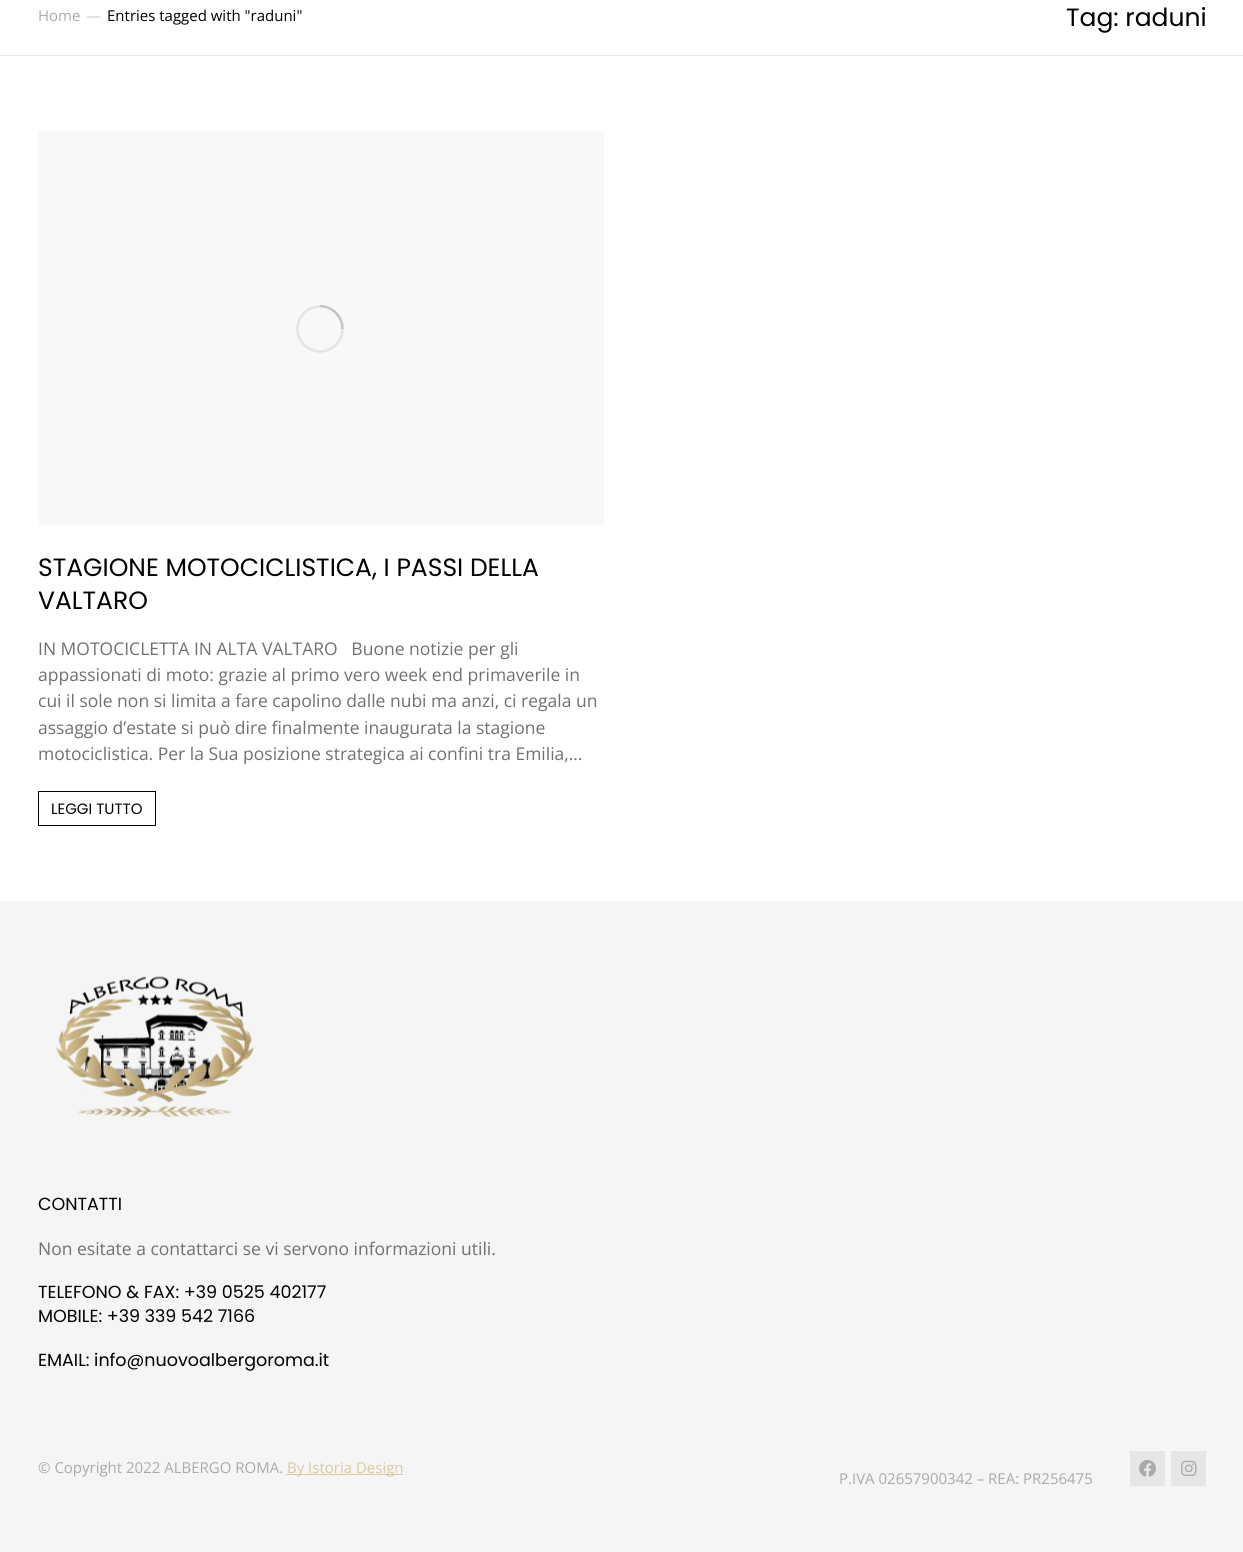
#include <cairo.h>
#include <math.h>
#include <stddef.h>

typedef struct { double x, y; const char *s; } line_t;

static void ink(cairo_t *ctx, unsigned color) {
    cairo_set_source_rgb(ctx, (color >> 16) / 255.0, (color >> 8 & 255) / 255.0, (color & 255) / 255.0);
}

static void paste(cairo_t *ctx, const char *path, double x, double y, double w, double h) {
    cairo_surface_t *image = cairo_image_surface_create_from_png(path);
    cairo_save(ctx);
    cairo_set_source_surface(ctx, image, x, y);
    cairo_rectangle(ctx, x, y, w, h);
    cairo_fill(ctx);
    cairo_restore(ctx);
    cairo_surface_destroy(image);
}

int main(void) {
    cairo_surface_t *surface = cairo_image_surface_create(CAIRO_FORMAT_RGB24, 1243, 1552);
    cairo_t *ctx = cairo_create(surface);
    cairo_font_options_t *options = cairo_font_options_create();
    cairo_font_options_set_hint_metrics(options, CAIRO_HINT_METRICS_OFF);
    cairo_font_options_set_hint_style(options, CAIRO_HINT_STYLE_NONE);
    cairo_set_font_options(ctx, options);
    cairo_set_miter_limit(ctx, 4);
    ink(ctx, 0xFFFFFF);
    cairo_paint(ctx);
    ink(ctx, 0xE8E8E8);
    cairo_rectangle(ctx, 0, 55, 1243, 1);
    cairo_fill(ctx);
    cairo_select_font_face(ctx, "Open Sans", CAIRO_FONT_SLANT_NORMAL, CAIRO_FONT_WEIGHT_NORMAL);
    cairo_set_font_size(ctx, 15);
    ink(ctx, 0xAAAAAA);
    cairo_move_to(ctx, 38, 21);
    cairo_show_text(ctx, "Home");
    ink(ctx, 0xC9C9C9);
    cairo_move_to(ctx, 86, 21);
    cairo_show_text(ctx, "—");
    ink(ctx, 0x000000);
    cairo_move_to(ctx, 107, 21);
    cairo_show_text(ctx, "Entries tagged with \"raduni\"");
    cairo_select_font_face(ctx, "Poppins", CAIRO_FONT_SLANT_NORMAL, CAIRO_FONT_WEIGHT_NORMAL);
    cairo_set_font_size(ctx, 25);
    cairo_move_to(ctx, 1066, 26);
    cairo_show_text(ctx, "Tag: raduni");
    ink(ctx, 0xF8F8F8);
    cairo_rectangle(ctx, 38, 131, 566, 395);
    cairo_fill(ctx);
    cairo_arc(ctx, 320, 329, 22.5, 0, 2 * M_PI);
    ink(ctx, 0xE4E4E4);
    cairo_set_line_width(ctx, 2.5);
    cairo_stroke(ctx);
    cairo_new_path(ctx);
    cairo_move_to(ctx, 342.5, 329);
    cairo_curve_to(ctx, 342.5, 316.5, 332.5, 306, 320, 306);
    cairo_set_source_rgba(ctx, 0.4, 0.4, 0.4, 0.25);
    cairo_stroke(ctx);
    ink(ctx, 0x000000);
    cairo_move_to(ctx, 38, 576);
    cairo_show_text(ctx, "STAGIONE MOTOCICLISTICA, I PASSI DELLA");
    cairo_move_to(ctx, 38, 609);
    cairo_show_text(ctx, "VALTARO");
    cairo_select_font_face(ctx, "Open Sans", CAIRO_FONT_SLANT_NORMAL, CAIRO_FONT_WEIGHT_NORMAL);
    cairo_set_font_size(ctx, 17.5);
    ink(ctx, 0x707070);
    {
        static const line_t items[] = {
            {38, 655, "IN MOTOCICLETTA IN ALTA VALTARO   Buone notizie per gli"},
            {38, 681, "appassionati di moto: grazie al primo vero week end primaverile in"},
            {38, 707, "cui il sole non si limita a fare capolino dalle nubi ma anzi, ci regala un"},
            {38, 734, "assaggio d’estate si può dire finalmente inaugurata la stagione"},
            {38, 760, "motociclistica. Per la Sua posizione strategica ai confini tra Emilia,…"},
        };
        for (size_t i = 0; i < sizeof items / sizeof *items; i++) {
            cairo_move_to(ctx, items[i].x, items[i].y);
            cairo_show_text(ctx, items[i].s);
        }
    }
    cairo_rectangle(ctx, 38.5, 791.5, 117, 34);
    ink(ctx, 0x000000);
    cairo_set_line_width(ctx, 1);
    cairo_stroke(ctx);
    cairo_select_font_face(ctx, "Poppins", CAIRO_FONT_SLANT_NORMAL, CAIRO_FONT_WEIGHT_NORMAL);
    cairo_set_font_size(ctx, 15);
    cairo_move_to(ctx, 51, 814);
    cairo_show_text(ctx, "LEGGI TUTTO");
    ink(ctx, 0xF5F5F5);
    cairo_rectangle(ctx, 0, 901, 1243, 651);
    cairo_fill(ctx);
    paste(ctx, "media/1.png", 56, 976, 198, 142);
    cairo_set_font_size(ctx, 17.5);
    ink(ctx, 0x000000);
    cairo_move_to(ctx, 38, 1210);
    cairo_show_text(ctx, "CONTATTI");
    cairo_select_font_face(ctx, "Open Sans", CAIRO_FONT_SLANT_NORMAL, CAIRO_FONT_WEIGHT_NORMAL);
    ink(ctx, 0x707070);
    cairo_move_to(ctx, 38, 1255);
    cairo_show_text(ctx, "Non esitate a contattarci se vi servono informazioni utili.");
    cairo_select_font_face(ctx, "Poppins", CAIRO_FONT_SLANT_NORMAL, CAIRO_FONT_WEIGHT_NORMAL);
    ink(ctx, 0x000000);
    {
        static const line_t items[] = {
            {38, 1298, "TELEFONO & FAX: +39 0525 402177"},
            {38, 1322, "MOBILE: +39 339 542 7166"},
            {38, 1366, "EMAIL: info@nuovoalbergoroma.it"},
        };
        for (size_t i = 0; i < sizeof items / sizeof *items; i++) {
            cairo_move_to(ctx, items[i].x, items[i].y);
            cairo_show_text(ctx, items[i].s);
        }
    }
    cairo_select_font_face(ctx, "Open Sans", CAIRO_FONT_SLANT_NORMAL, CAIRO_FONT_WEIGHT_NORMAL);
    cairo_set_font_size(ctx, 15);
    ink(ctx, 0xAAAAAA);
    cairo_move_to(ctx, 38, 1473);
    cairo_show_text(ctx, "© Copyright 2022 ALBERGO ROMA.");
    ink(ctx, 0xDAC8A2);
    cairo_rectangle(ctx, 286, 1474, 117, 1);
    cairo_fill(ctx);
    cairo_move_to(ctx, 287, 1473);
    cairo_show_text(ctx, "By Istoria Design");
    ink(ctx, 0xAAAAAA);
    cairo_move_to(ctx, 839, 1484);
    cairo_show_text(ctx, "P.IVA 02657900342 – REA: PR256475");
    ink(ctx, 0xE6E6E6);
    cairo_rectangle(ctx, 1130, 1451, 35, 35);
    cairo_fill(ctx);
    paste(ctx, "media/2.png", 1139, 1460, 17, 17);
    cairo_rectangle(ctx, 1171, 1451, 35, 35);
    cairo_fill(ctx);
    paste(ctx, "media/3.png", 1181, 1460, 16, 16);
    cairo_surface_write_to_png(surface, "image.png");
    cairo_font_options_destroy(options);
    cairo_destroy(ctx);
    cairo_surface_destroy(surface);
    return 0;
}
